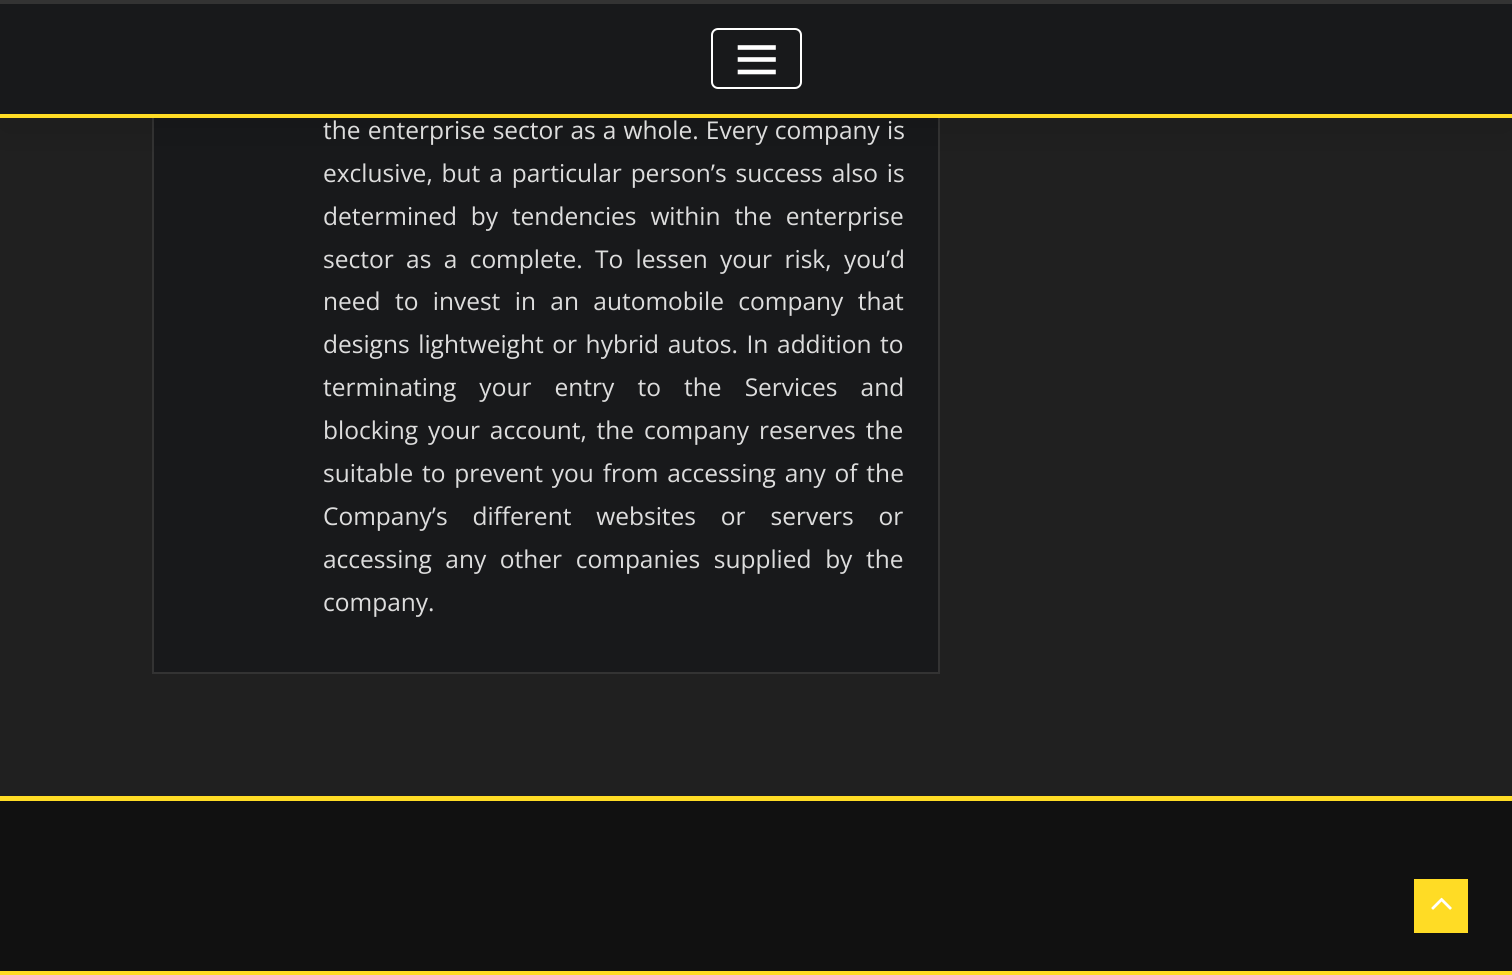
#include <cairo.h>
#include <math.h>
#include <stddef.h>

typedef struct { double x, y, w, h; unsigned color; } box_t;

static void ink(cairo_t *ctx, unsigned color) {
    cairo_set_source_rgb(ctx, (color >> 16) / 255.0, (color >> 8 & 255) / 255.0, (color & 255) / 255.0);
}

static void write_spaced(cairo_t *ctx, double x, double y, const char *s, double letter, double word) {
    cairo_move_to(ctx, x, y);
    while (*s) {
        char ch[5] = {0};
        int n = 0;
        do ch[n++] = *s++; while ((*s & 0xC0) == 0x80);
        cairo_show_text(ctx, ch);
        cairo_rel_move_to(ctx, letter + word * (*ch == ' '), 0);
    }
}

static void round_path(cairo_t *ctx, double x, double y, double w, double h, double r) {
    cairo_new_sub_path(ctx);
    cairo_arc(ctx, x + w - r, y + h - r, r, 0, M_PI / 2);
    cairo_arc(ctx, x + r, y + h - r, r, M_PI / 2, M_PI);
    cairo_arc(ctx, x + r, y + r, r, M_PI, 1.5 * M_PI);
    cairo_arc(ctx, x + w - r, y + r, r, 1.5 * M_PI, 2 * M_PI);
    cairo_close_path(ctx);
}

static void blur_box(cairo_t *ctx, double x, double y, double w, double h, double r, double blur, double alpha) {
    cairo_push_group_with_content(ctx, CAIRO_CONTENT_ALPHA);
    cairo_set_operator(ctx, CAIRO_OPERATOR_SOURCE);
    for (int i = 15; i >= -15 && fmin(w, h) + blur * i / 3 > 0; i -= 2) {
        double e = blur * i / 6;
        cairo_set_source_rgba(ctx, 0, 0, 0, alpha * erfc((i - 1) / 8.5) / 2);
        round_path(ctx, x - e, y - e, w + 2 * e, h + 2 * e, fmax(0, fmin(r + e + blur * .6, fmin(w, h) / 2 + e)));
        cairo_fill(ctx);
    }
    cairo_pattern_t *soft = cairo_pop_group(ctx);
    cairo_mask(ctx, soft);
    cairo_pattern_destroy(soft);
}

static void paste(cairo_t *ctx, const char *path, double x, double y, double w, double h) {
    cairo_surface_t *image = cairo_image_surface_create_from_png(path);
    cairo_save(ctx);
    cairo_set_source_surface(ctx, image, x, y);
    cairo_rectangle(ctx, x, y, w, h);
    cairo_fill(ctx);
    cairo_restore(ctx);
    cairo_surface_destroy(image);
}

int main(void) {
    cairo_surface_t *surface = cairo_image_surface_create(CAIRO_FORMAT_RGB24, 1512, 975);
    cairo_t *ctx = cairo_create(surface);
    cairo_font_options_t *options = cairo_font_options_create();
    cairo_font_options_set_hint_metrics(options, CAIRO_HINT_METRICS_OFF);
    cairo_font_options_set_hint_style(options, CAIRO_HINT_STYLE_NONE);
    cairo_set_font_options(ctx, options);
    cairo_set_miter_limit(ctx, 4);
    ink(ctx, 0x202020);
    cairo_paint(ctx);
    ink(ctx, 0x18191B);
    cairo_rectangle(ctx, 154, 118, 784, 554);
    cairo_fill(ctx);
    cairo_rectangle(ctx, 153, -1, 786, 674);
    ink(ctx, 0x333333);
    cairo_stroke(ctx);
    ink(ctx, 0x000000);
    blur_box(ctx, 0, 14, 1512, 117, 0, 17.5, 0.1);
    {
        static const box_t items[] = {
            {0, 4, 1512, 110, 0x18191B},
            {0, 0, 1512, 4, 0x333333},
            {0, 114, 1512, 4, 0xFFDC25},
        };
        for (size_t i = 0; i < sizeof items / sizeof *items; i++) {
            ink(ctx, items[i].color);
            cairo_rectangle(ctx, items[i].x, items[i].y, items[i].w, items[i].h);
            cairo_fill(ctx);
        }
    }
    round_path(ctx, 712, 29, 89, 59, 6);
    ink(ctx, 0xFFFFFF);
    cairo_stroke(ctx);
    cairo_new_path(ctx);
    cairo_move_to(ctx, 740, 47.5);
    cairo_line_to(ctx, 773.5, 47.5);
    cairo_move_to(ctx, 740, 59.5);
    cairo_line_to(ctx, 773.5, 59.5);
    cairo_move_to(ctx, 740, 72);
    cairo_line_to(ctx, 773.5, 72);
    cairo_set_line_width(ctx, 4.6);
    cairo_set_line_cap(ctx, CAIRO_LINE_CAP_SQUARE);
    cairo_stroke(ctx);
    cairo_select_font_face(ctx, "Open Sans", CAIRO_FONT_SLANT_NORMAL, CAIRO_FONT_WEIGHT_NORMAL);
    cairo_set_font_size(ctx, 24.5);
    ink(ctx, 0xDDDDDD);
    write_spaced(ctx, 323, 139, "the enterprise sector as a whole. Every company is", 0, 0.75);
    write_spaced(ctx, 323, 182, "exclusive, but a particular person’s success also is", 0, 2.5);
    write_spaced(ctx, 323, 225, "determined by tendencies within the enterprise", 0, 7.5);
    write_spaced(ctx, 323, 268, "sector as a complete. To lessen your risk, you’d", 0, 6);
    write_spaced(ctx, 323, 310, "need to invest in an automobile company that", 0, 8);
    write_spaced(ctx, 323, 353, "designs lightweight or hybrid autos. In addition to", 0, 2.25);
    write_spaced(ctx, 323, 396, "terminating your entry to the Services and", 0, 16.75);
    write_spaced(ctx, 323, 439, "blocking your account, the company reserves the", 0, 3.5);
    write_spaced(ctx, 323, 482, "suitable to prevent you from accessing any of the", 0, 2.5);
    write_spaced(ctx, 323, 525, "Company’s different websites or servers or", 0, 18.5);
    write_spaced(ctx, 323, 568, "accessing any other companies supplied by the", 0, 7.25);
    cairo_move_to(ctx, 323, 611);
    cairo_show_text(ctx, "company.");
    {
        static const box_t items[] = {
            {0, 801, 1512, 170, 0x111111},
            {0, 796, 1512, 5, 0xFFDC25},
            {0, 971, 1512, 4, 0xFFDC25},
            {1414, 879, 54, 54, 0xFFDC25},
        };
        for (size_t i = 0; i < sizeof items / sizeof *items; i++) {
            ink(ctx, items[i].color);
            cairo_rectangle(ctx, items[i].x, items[i].y, items[i].w, items[i].h);
            cairo_fill(ctx);
        }
    }
    paste(ctx, "media/1.png", 1431, 897, 21, 13);
    cairo_surface_write_to_png(surface, "image.png");
    cairo_font_options_destroy(options);
    cairo_destroy(ctx);
    cairo_surface_destroy(surface);
    return 0;
}
